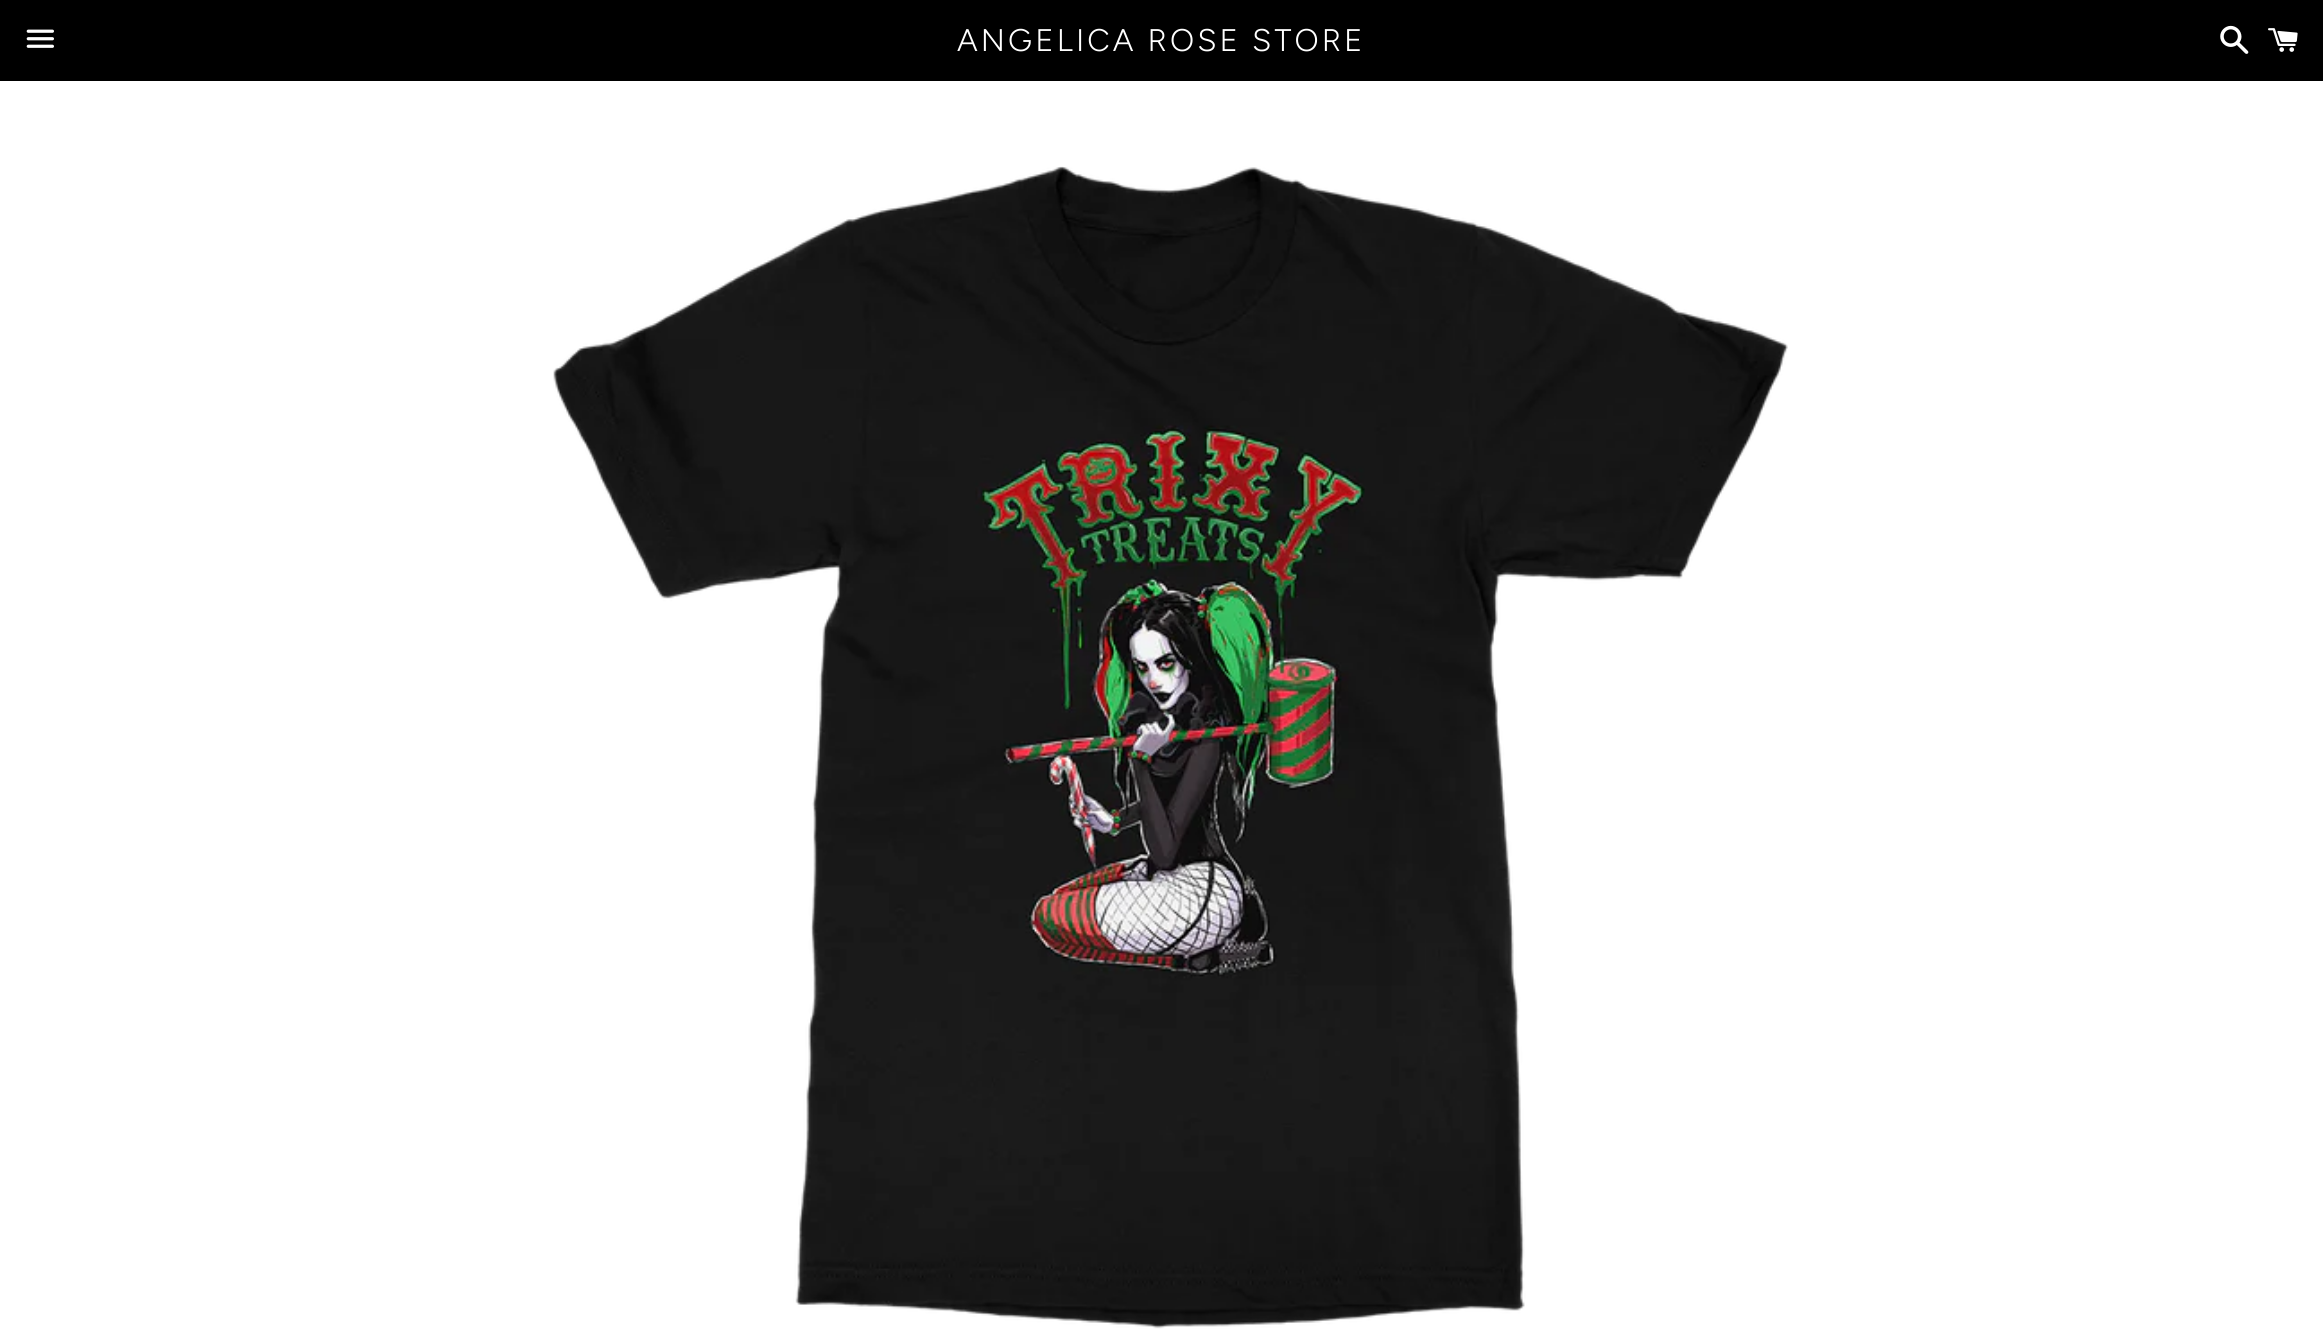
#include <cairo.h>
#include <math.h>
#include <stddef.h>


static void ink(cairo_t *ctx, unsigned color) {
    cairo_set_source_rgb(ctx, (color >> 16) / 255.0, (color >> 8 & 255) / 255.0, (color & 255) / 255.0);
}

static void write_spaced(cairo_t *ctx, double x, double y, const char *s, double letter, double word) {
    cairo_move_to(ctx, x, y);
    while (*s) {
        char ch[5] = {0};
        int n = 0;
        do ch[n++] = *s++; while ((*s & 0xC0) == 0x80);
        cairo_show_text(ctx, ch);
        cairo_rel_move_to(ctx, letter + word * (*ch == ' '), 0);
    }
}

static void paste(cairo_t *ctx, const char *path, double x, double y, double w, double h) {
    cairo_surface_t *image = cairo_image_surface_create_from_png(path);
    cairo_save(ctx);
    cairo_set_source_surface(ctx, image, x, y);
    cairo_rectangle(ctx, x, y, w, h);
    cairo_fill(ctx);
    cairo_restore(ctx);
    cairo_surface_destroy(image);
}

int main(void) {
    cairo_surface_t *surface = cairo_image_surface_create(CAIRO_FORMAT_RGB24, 2323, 1338);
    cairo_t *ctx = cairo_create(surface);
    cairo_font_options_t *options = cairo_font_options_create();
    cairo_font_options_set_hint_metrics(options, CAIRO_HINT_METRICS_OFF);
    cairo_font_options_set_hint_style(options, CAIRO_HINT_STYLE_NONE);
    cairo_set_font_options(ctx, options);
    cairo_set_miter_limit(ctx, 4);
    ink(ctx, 0xFFFFFF);
    cairo_paint(ctx);
    ink(ctx, 0x000000);
    cairo_rectangle(ctx, 0, 0, 2323, 81);
    cairo_fill(ctx);
    paste(ctx, "media/1.png", 26, 29, 28, 19);
    cairo_select_font_face(ctx, "Figtree Light", CAIRO_FONT_SLANT_NORMAL, CAIRO_FONT_WEIGHT_NORMAL);
    cairo_set_font_size(ctx, 31.25);
    ink(ctx, 0xFFFFFF);
    write_spaced(ctx, 957, 51, "ANGELICA ROSE STORE", 3.1, 0);
    paste(ctx, "media/2.png", 2220, 25, 29, 29);
    paste(ctx, "media/3.png", 2268, 28, 30, 24);
    paste(ctx, "media/4.png", 553, 166, 1235, 1163);
    cairo_surface_write_to_png(surface, "image.png");
    cairo_font_options_destroy(options);
    cairo_destroy(ctx);
    cairo_surface_destroy(surface);
    return 0;
}
